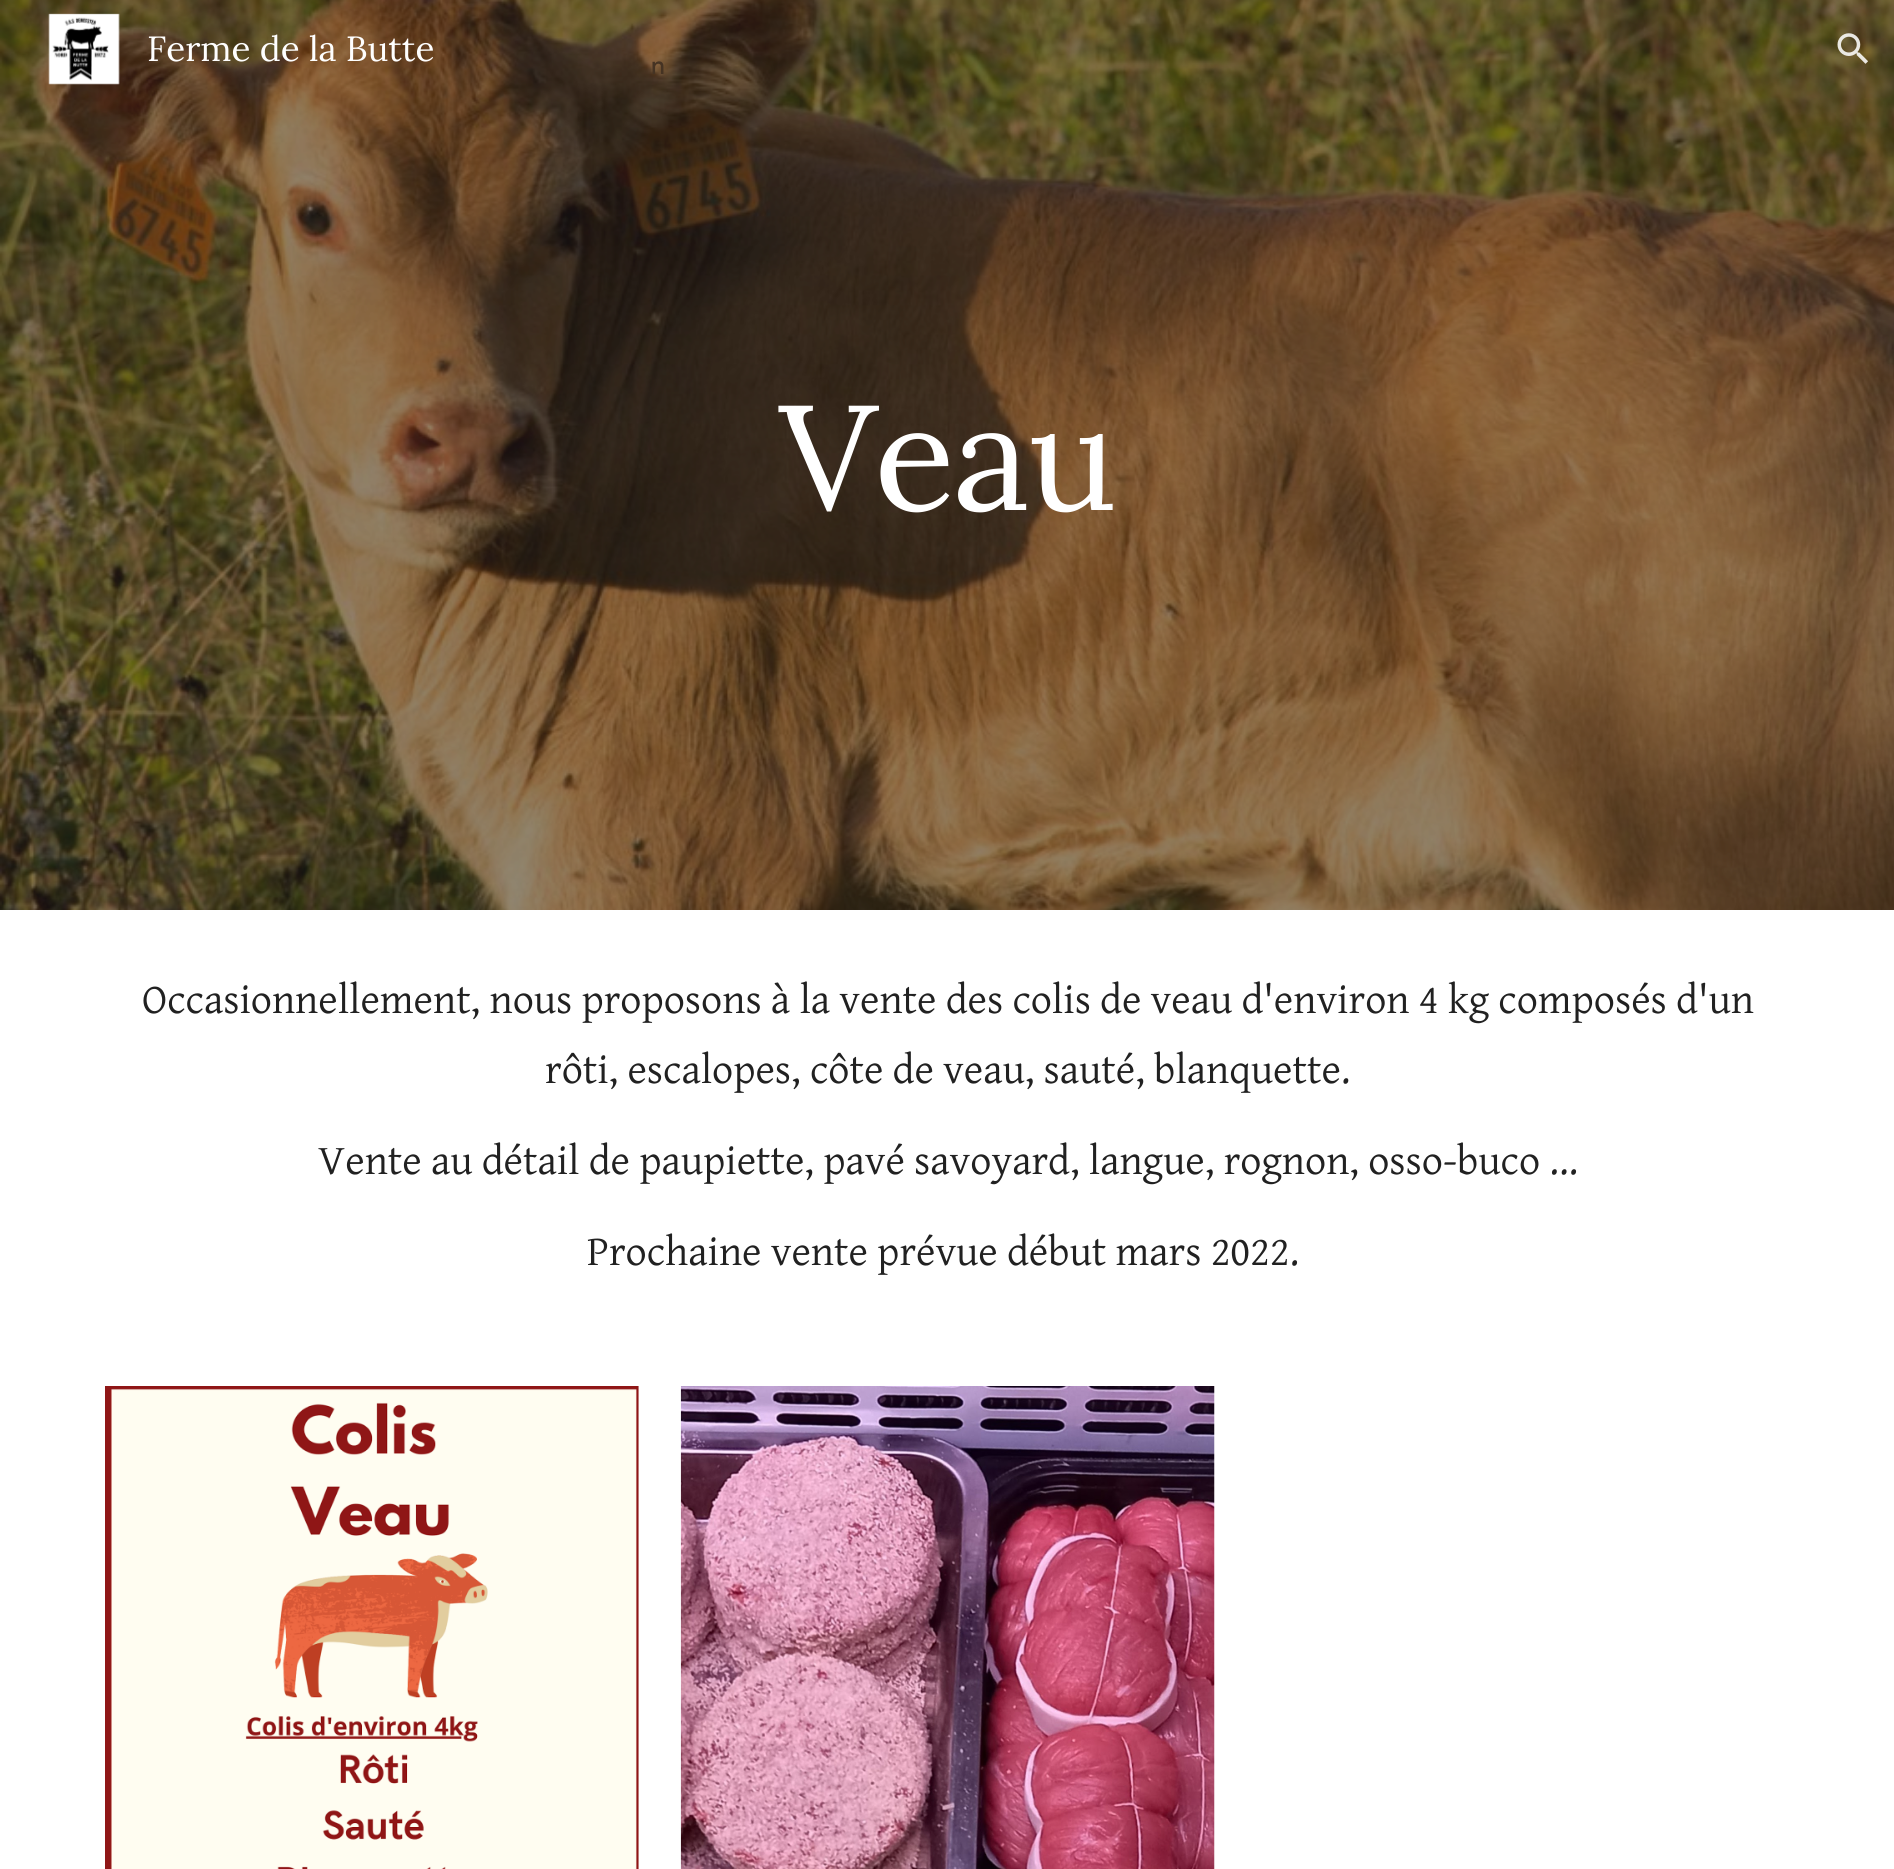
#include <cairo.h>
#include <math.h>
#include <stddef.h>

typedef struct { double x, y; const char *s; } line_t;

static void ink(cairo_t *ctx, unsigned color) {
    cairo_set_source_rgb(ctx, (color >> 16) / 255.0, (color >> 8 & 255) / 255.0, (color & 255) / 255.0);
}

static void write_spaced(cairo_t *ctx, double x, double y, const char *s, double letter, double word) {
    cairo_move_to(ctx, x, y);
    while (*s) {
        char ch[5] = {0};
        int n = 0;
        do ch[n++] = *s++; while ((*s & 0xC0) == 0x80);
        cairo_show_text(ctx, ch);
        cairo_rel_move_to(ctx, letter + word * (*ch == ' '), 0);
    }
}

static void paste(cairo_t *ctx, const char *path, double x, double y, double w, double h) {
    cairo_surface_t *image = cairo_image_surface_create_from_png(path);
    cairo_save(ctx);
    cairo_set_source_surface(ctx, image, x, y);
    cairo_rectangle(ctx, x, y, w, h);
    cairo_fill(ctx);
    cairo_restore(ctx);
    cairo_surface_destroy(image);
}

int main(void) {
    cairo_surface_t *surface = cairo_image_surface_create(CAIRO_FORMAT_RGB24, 1894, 1869);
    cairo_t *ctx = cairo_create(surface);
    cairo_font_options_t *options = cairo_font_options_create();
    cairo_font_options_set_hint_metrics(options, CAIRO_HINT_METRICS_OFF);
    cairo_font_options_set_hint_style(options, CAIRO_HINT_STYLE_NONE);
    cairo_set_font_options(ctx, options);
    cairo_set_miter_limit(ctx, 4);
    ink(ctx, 0xFFFFFF);
    cairo_paint(ctx);
    paste(ctx, "media/3.png", 0, 0, 1894, 910);
    paste(ctx, "media/1.png", 48, 13, 72, 72);
    cairo_select_font_face(ctx, "Lora", CAIRO_FONT_SLANT_NORMAL, CAIRO_FONT_WEIGHT_NORMAL);
    cairo_set_font_size(ctx, 35);
    ink(ctx, 0xFFFFFF);
    cairo_move_to(ctx, 147, 61);
    cairo_show_text(ctx, "Ferme de la Butte");
    paste(ctx, "media/2.png", 1837, 33, 31, 31);
    cairo_set_font_size(ctx, 149);
    write_spaced(ctx, 779, 510, "Veau", -2, 0);
    cairo_select_font_face(ctx, "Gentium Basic", CAIRO_FONT_SLANT_NORMAL, CAIRO_FONT_WEIGHT_NORMAL);
    cairo_set_font_size(ctx, 42);
    ink(ctx, 0x212121);
    {
        static const line_t items[] = {
            {142, 1013, "Occasionnellement, nous proposons à la vente des colis de veau d'environ 4 kg composés d'un"},
            {545, 1083, "rôti, escalopes, côte de veau, sauté, blanquette."},
            {318, 1174, "Vente au détail de paupiette, pavé savoyard, langue, rognon, osso-buco ..."},
            {587, 1265, "Prochaine vente prévue début mars 2022."},
        };
        for (size_t i = 0; i < sizeof items / sizeof *items; i++) {
            cairo_move_to(ctx, items[i].x, items[i].y);
            cairo_show_text(ctx, items[i].s);
        }
    }
    paste(ctx, "media/4.png", 105, 1386, 534, 483);
    paste(ctx, "media/5.png", 680, 1386, 535, 483);
    cairo_select_font_face(ctx, "Google Sans Medium", CAIRO_FONT_SLANT_NORMAL, CAIRO_FONT_WEIGHT_NORMAL);
    cairo_set_font_size(ctx, 24);
    ink(ctx, 0x453323);
    cairo_move_to(ctx, 651, 74);
    cairo_show_text(ctx, "n");
    cairo_surface_write_to_png(surface, "image.png");
    cairo_font_options_destroy(options);
    cairo_destroy(ctx);
    cairo_surface_destroy(surface);
    return 0;
}
